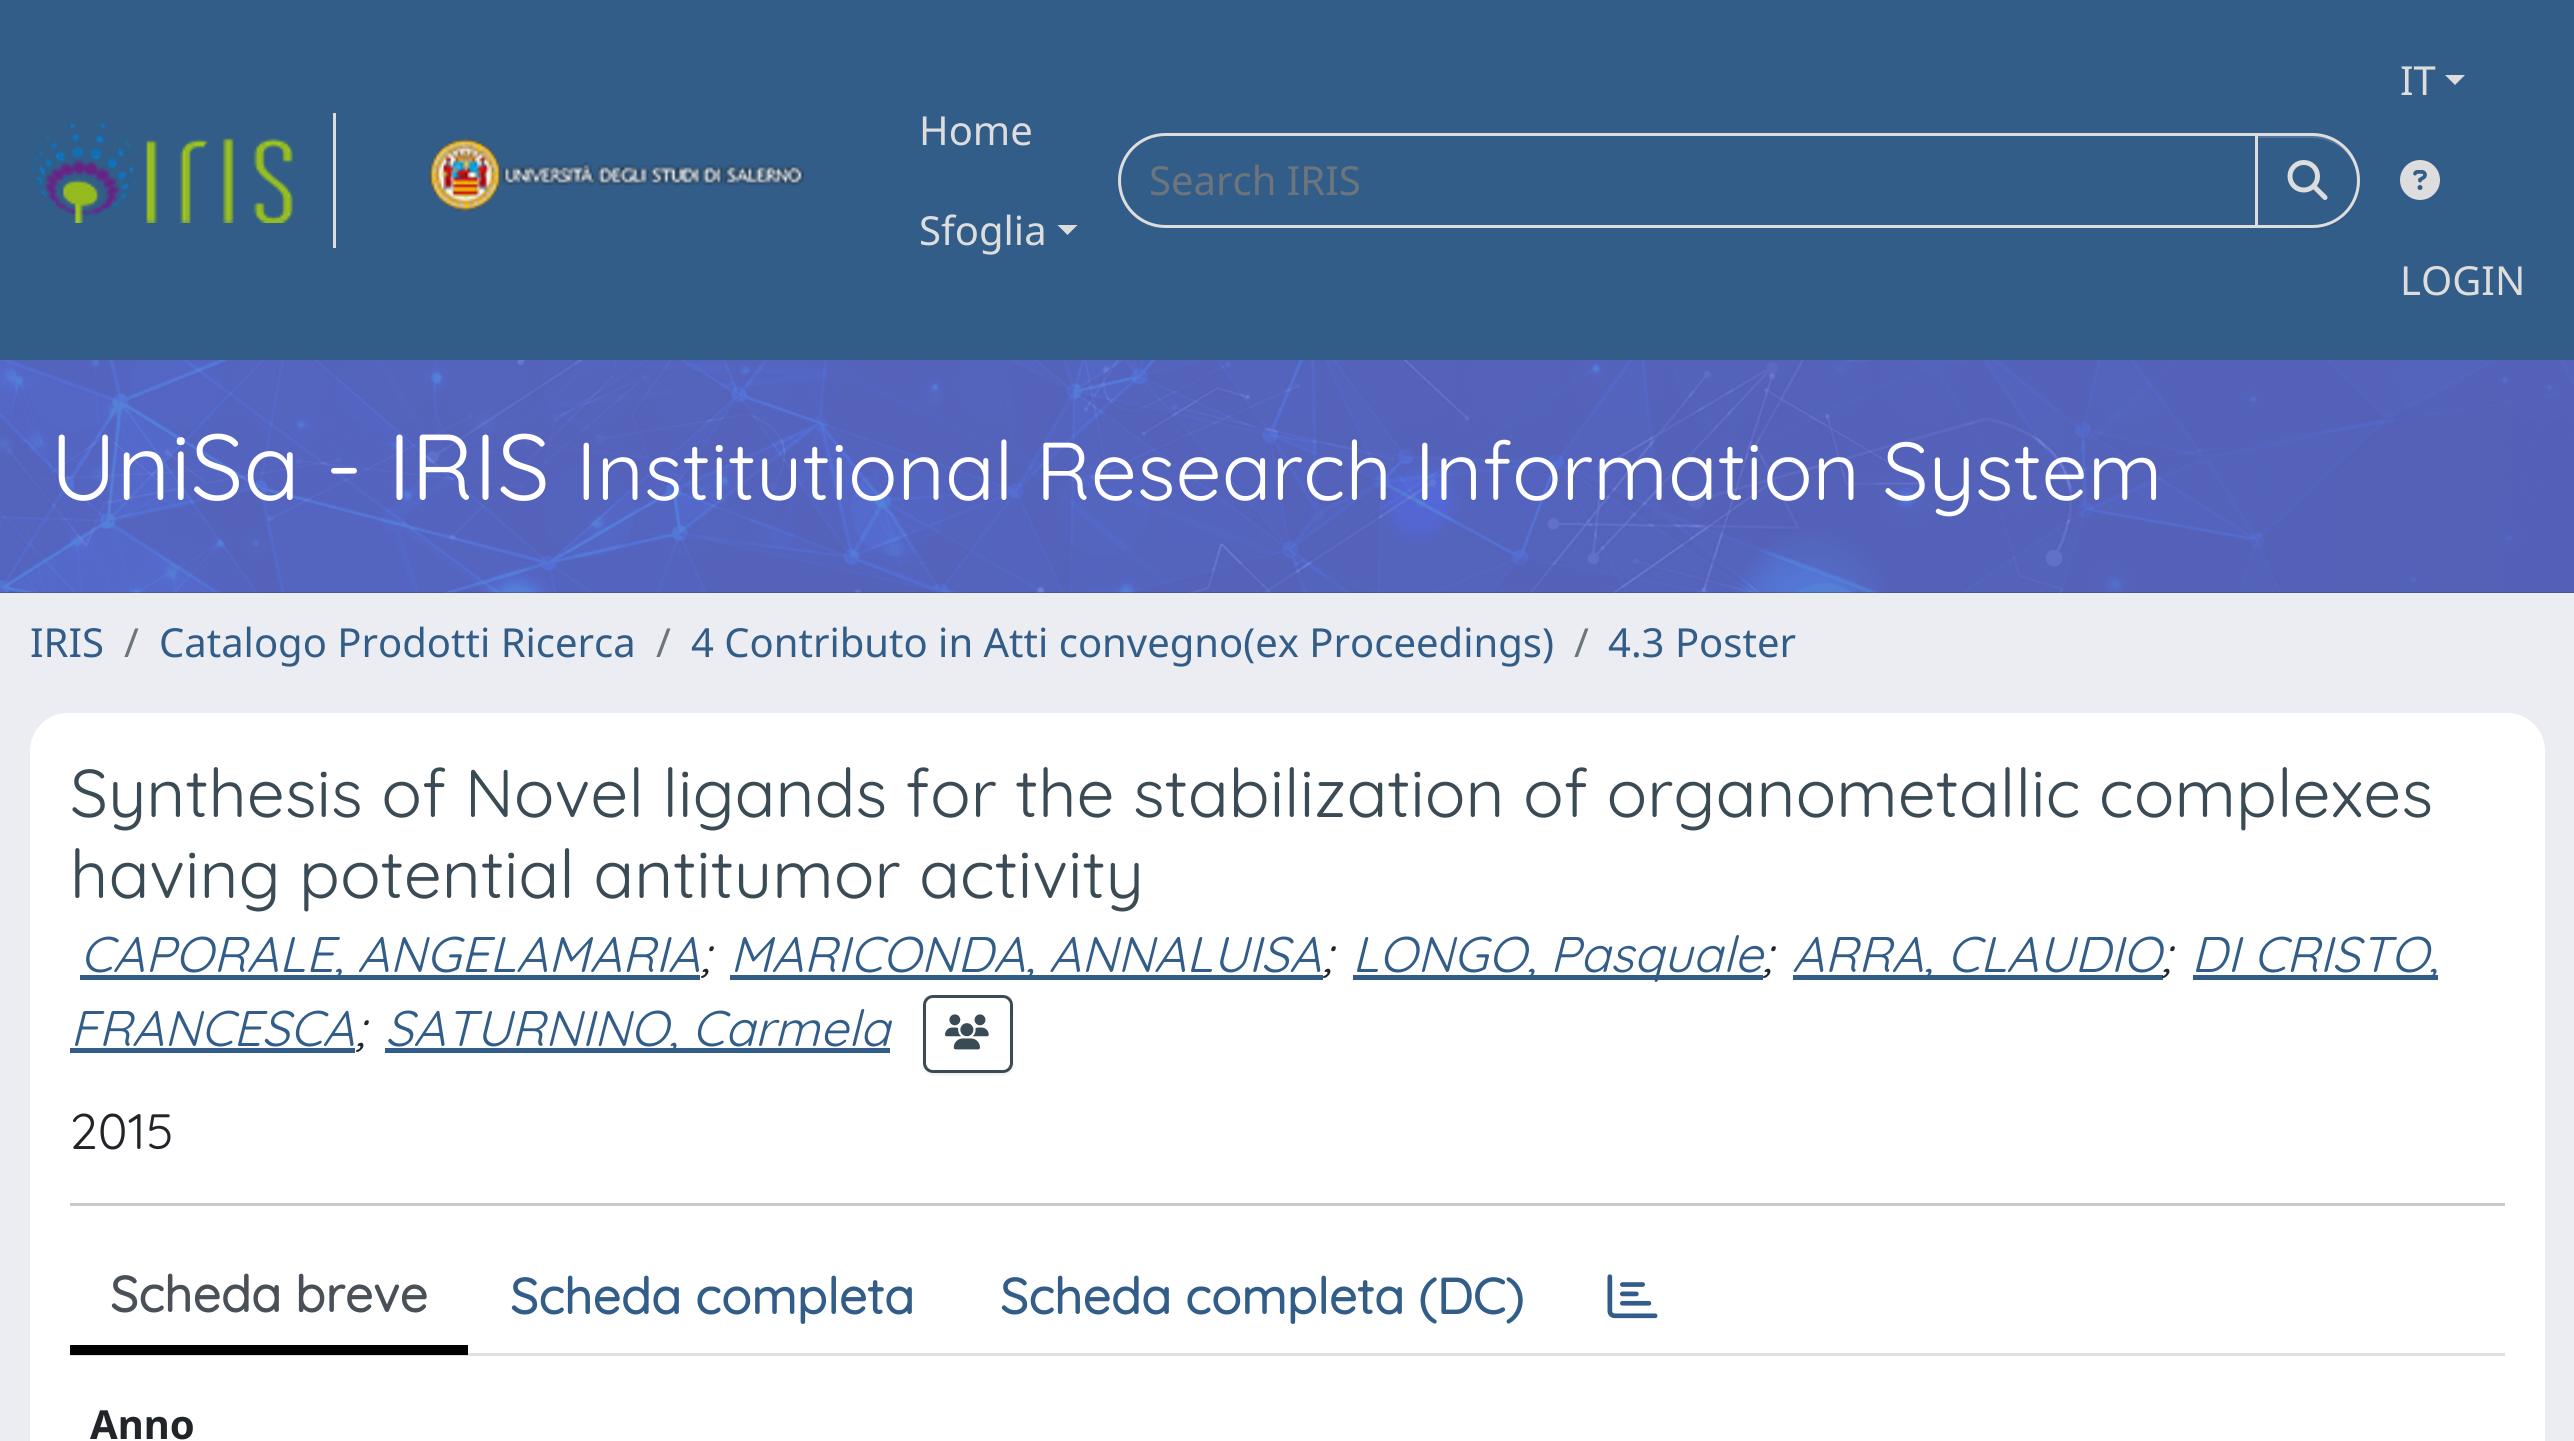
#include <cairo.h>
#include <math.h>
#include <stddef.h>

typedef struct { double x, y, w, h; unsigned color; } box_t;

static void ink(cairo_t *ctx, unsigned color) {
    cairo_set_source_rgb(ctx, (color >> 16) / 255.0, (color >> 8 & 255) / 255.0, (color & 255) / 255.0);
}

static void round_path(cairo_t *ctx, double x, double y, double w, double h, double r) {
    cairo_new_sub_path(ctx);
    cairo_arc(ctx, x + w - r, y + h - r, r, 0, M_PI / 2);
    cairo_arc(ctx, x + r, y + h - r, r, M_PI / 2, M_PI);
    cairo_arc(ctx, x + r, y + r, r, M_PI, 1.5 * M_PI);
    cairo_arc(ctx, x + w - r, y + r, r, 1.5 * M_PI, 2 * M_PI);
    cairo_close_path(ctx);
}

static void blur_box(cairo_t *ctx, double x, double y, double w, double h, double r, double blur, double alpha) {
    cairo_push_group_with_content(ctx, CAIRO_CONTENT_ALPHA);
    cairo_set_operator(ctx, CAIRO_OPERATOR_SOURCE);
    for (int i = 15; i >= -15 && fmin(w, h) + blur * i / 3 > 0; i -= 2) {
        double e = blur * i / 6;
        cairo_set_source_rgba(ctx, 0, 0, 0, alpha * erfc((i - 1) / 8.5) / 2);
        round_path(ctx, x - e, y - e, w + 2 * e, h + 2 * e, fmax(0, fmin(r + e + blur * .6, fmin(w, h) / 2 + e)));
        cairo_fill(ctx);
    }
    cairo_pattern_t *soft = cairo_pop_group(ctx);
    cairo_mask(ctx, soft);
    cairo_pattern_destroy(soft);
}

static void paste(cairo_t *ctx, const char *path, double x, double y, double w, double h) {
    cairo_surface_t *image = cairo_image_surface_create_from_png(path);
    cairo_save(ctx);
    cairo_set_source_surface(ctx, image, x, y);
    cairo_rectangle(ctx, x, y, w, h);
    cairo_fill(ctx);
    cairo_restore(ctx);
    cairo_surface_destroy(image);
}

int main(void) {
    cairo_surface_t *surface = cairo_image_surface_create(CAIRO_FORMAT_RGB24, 2574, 1441);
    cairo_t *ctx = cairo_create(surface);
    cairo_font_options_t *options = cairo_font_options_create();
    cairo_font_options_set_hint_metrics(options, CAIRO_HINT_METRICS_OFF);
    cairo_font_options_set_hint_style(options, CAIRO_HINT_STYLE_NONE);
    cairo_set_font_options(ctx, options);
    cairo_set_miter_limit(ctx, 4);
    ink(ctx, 0xECEDF2);
    cairo_paint(ctx);
    ink(ctx, 0x325D88);
    cairo_rectangle(ctx, 0, 0, 2574, 360);
    cairo_fill(ctx);
    ink(ctx, 0xDDDDDD);
    cairo_rectangle(ctx, 333, 113, 3, 135);
    cairo_fill(ctx);
    paste(ctx, "media/1.png", 30, 123, 263, 100);
    paste(ctx, "media/2.png", 428, 138, 376, 74);
    cairo_select_font_face(ctx, "Noto Sans", CAIRO_FONT_SLANT_NORMAL, CAIRO_FONT_WEIGHT_NORMAL);
    cairo_set_font_size(ctx, 40);
    cairo_move_to(ctx, 919, 145);
    cairo_show_text(ctx, "Home");
    cairo_move_to(ctx, 919, 245);
    cairo_show_text(ctx, "Sfoglia");
    cairo_new_path(ctx);
    cairo_move_to(ctx, 1057.5, 225);
    cairo_line_to(ctx, 1077.5, 225);
    cairo_line_to(ctx, 1067.5, 235);
    cairo_close_path(ctx);
    cairo_fill(ctx);
    cairo_new_path(ctx);
    cairo_move_to(ctx, 1165.5, 134.5);
    cairo_line_to(ctx, 2256.5, 134.5);
    cairo_line_to(ctx, 2256.5, 226.5);
    cairo_line_to(ctx, 1165.5, 226.5);
    cairo_curve_to(ctx, 1140, 226.5, 1119.5, 206, 1119.5, 180.5);
    cairo_curve_to(ctx, 1119.5, 155, 1140, 134.5, 1165.5, 134.5);
    cairo_close_path(ctx);
    cairo_set_line_width(ctx, 3);
    cairo_stroke(ctx);
    ink(ctx, 0x6C757D);
    cairo_move_to(ctx, 1149, 195);
    cairo_show_text(ctx, "Search IRIS");
    ink(ctx, 0x000000);
    blur_box(ctx, 2255, 135, 105, 95, 47.5, 1, 0.07);
    ink(ctx, 0x325D88);
    cairo_new_path(ctx);
    cairo_move_to(ctx, 2255, 133);
    cairo_line_to(ctx, 2312.5, 133);
    cairo_curve_to(ctx, 2338.5, 133, 2360, 154.5, 2360, 180.5);
    cairo_curve_to(ctx, 2360, 206.5, 2338.5, 228, 2312.5, 228);
    cairo_line_to(ctx, 2255, 228);
    cairo_close_path(ctx);
    cairo_fill(ctx);
    ink(ctx, 0x51759A);
    cairo_new_path(ctx);
    cairo_move_to(ctx, 2258, 138);
    cairo_line_to(ctx, 2312, 138);
    cairo_curve_to(ctx, 2337, 138, 2357, 157, 2358, 181);
    cairo_line_to(ctx, 2358, 180);
    cairo_curve_to(ctx, 2358, 155, 2338, 135, 2313, 135);
    cairo_line_to(ctx, 2258, 135);
    cairo_close_path(ctx);
    cairo_fill(ctx);
    cairo_new_path(ctx);
    cairo_move_to(ctx, 2256.5, 134.5);
    cairo_line_to(ctx, 2312.5, 134.5);
    cairo_curve_to(ctx, 2338, 134.5, 2358.5, 155, 2358.5, 180.5);
    cairo_curve_to(ctx, 2358.5, 206, 2338, 226.5, 2312.5, 226.5);
    cairo_line_to(ctx, 2256.5, 226.5);
    cairo_close_path(ctx);
    ink(ctx, 0xDDDDDD);
    cairo_stroke(ctx);
    paste(ctx, "media/3.png", 2287, 160, 41, 40);
    cairo_move_to(ctx, 2400, 95);
    cairo_show_text(ctx, "IT");
    cairo_new_path(ctx);
    cairo_move_to(ctx, 2445, 75);
    cairo_line_to(ctx, 2465, 75);
    cairo_line_to(ctx, 2455, 85);
    cairo_close_path(ctx);
    cairo_fill(ctx);
    paste(ctx, "media/4.png", 2400, 160, 40, 40);
    cairo_move_to(ctx, 2400, 295);
    cairo_show_text(ctx, "LOGIN");
    ink(ctx, 0x3A4B55);
    cairo_rectangle(ctx, 0, 360, 2574, 233);
    cairo_fill(ctx);
    paste(ctx, "media/5.png", 0, 360, 2574, 233);
    cairo_select_font_face(ctx, "Quicksand", CAIRO_FONT_SLANT_NORMAL, CAIRO_FONT_WEIGHT_NORMAL);
    cairo_set_font_size(ctx, 93.5);
    ink(ctx, 0xFFFFFF);
    cairo_move_to(ctx, 50, 500);
    cairo_show_text(ctx, "UniSa - IRIS");
    cairo_set_font_size(ctx, 81.9);
    cairo_move_to(ctx, 576, 500);
    cairo_show_text(ctx, "Institutional Research Information System");
    cairo_select_font_face(ctx, "Noto Sans", CAIRO_FONT_SLANT_NORMAL, CAIRO_FONT_WEIGHT_NORMAL);
    cairo_set_font_size(ctx, 40);
    ink(ctx, 0x325D88);
    cairo_move_to(ctx, 30, 657);
    cairo_show_text(ctx, "IRIS");
    ink(ctx, 0x6C757D);
    cairo_move_to(ctx, 124, 657);
    cairo_show_text(ctx, "/");
    ink(ctx, 0x325D88);
    cairo_move_to(ctx, 159, 657);
    cairo_show_text(ctx, "Catalogo Prodotti Ricerca");
    ink(ctx, 0x6C757D);
    cairo_move_to(ctx, 656, 657);
    cairo_show_text(ctx, "/");
    ink(ctx, 0x325D88);
    cairo_move_to(ctx, 691, 657);
    cairo_show_text(ctx, "4 Contributo in Atti convegno(ex Proceedings)");
    ink(ctx, 0x6C757D);
    cairo_move_to(ctx, 1574, 657);
    cairo_show_text(ctx, "/");
    ink(ctx, 0x325D88);
    cairo_move_to(ctx, 1608, 657);
    cairo_show_text(ctx, "4.3 Poster");
    ink(ctx, 0xFFFFFF);
    round_path(ctx, 30, 713, 2515, 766, 38);
    cairo_fill(ctx);
    cairo_select_font_face(ctx, "Quicksand", CAIRO_FONT_SLANT_NORMAL, CAIRO_FONT_WEIGHT_NORMAL);
    cairo_set_font_size(ctx, 67.45);
    ink(ctx, 0x3A4B55);
    cairo_move_to(ctx, 70, 817);
    cairo_show_text(ctx, "Synthesis of Novel ligands for the stabilization of organometallic complexes");
    cairo_move_to(ctx, 70, 898);
    cairo_show_text(ctx, "having potential antitumor activity");
    ink(ctx, 0x325D88);
    cairo_rectangle(ctx, 80, 975, 620, 5);
    cairo_fill(ctx);
    cairo_select_font_face(ctx, "Quicksand", CAIRO_FONT_SLANT_ITALIC, CAIRO_FONT_WEIGHT_NORMAL);
    cairo_set_font_size(ctx, 50);
    cairo_move_to(ctx, 80, 972);
    cairo_show_text(ctx, "CAPORALE, ANGELAMARIA");
    ink(ctx, 0x212529);
    cairo_move_to(ctx, 700, 972);
    cairo_show_text(ctx, ";");
    ink(ctx, 0x325D88);
    cairo_rectangle(ctx, 730, 975, 593, 5);
    cairo_fill(ctx);
    cairo_move_to(ctx, 730, 972);
    cairo_show_text(ctx, "MARICONDA, ANNALUISA");
    ink(ctx, 0x212529);
    cairo_move_to(ctx, 1322, 972);
    cairo_show_text(ctx, ";");
    ink(ctx, 0x325D88);
    cairo_rectangle(ctx, 1353, 975, 410, 5);
    cairo_fill(ctx);
    cairo_move_to(ctx, 1352, 972);
    cairo_show_text(ctx, "LONGO, Pasquale");
    ink(ctx, 0x212529);
    cairo_move_to(ctx, 1762, 972);
    cairo_show_text(ctx, ";");
    ink(ctx, 0x325D88);
    cairo_rectangle(ctx, 1793, 975, 370, 5);
    cairo_fill(ctx);
    cairo_move_to(ctx, 1792, 972);
    cairo_show_text(ctx, "ARRA, CLAUDIO");
    ink(ctx, 0x212529);
    cairo_move_to(ctx, 2161, 972);
    cairo_show_text(ctx, ";");
    ink(ctx, 0x325D88);
    cairo_rectangle(ctx, 2193, 975, 245, 5);
    cairo_fill(ctx);
    cairo_move_to(ctx, 2191, 972);
    cairo_show_text(ctx, "DI CRISTO,");
    cairo_move_to(ctx, 70, 1046);
    cairo_show_text(ctx, "FRANCESCA");
    ink(ctx, 0x212529);
    cairo_move_to(ctx, 355, 1046);
    cairo_show_text(ctx, ";");
    ink(ctx, 0x325D88);
    cairo_rectangle(ctx, 70, 1048, 285, 5);
    cairo_fill(ctx);
    cairo_rectangle(ctx, 385, 1048, 505, 5);
    cairo_fill(ctx);
    cairo_move_to(ctx, 385, 1046);
    cairo_show_text(ctx, "SATURNINO, Carmela");
    cairo_save(ctx);
    cairo_set_fill_rule(ctx, CAIRO_FILL_RULE_EVEN_ODD);
    cairo_new_path(ctx);
    cairo_move_to(ctx, 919, 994);
    cairo_line_to(ctx, 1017, 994);
    cairo_line_to(ctx, 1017, 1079);
    cairo_line_to(ctx, 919, 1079);
    cairo_close_path(ctx);
    cairo_move_to(ctx, 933, 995);
    cairo_line_to(ctx, 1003, 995);
    cairo_curve_to(ctx, 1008.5, 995, 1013, 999.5, 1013, 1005);
    cairo_line_to(ctx, 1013, 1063);
    cairo_curve_to(ctx, 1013, 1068.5, 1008.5, 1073, 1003, 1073);
    cairo_line_to(ctx, 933, 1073);
    cairo_curve_to(ctx, 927.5, 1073, 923, 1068.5, 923, 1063);
    cairo_line_to(ctx, 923, 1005);
    cairo_curve_to(ctx, 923, 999.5, 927.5, 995, 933, 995);
    cairo_close_path(ctx);
    cairo_clip(ctx);
    ink(ctx, 0x000000);
    blur_box(ctx, 923, 998, 90, 77, 10, 1, 0.07);
    cairo_restore(ctx);
    round_path(ctx, 924.5, 996.5, 87, 75, 8.5);
    ink(ctx, 0x3A4B55);
    cairo_stroke(ctx);
    paste(ctx, "media/6.png", 945, 1014, 44, 36);
    cairo_select_font_face(ctx, "Quicksand", CAIRO_FONT_SLANT_NORMAL, CAIRO_FONT_WEIGHT_NORMAL);
    ink(ctx, 0x212529);
    cairo_move_to(ctx, 70, 1149);
    cairo_show_text(ctx, "2015");
    {
        static const box_t items[] = {
            {70, 1203, 2435, 3, 0xC8C9CA},
            {70, 1353, 2435, 3, 0xDEE2E6},
            {70, 1345, 398, 10, 0x000000},
        };
        for (size_t i = 0; i < sizeof items / sizeof *items; i++) {
            ink(ctx, items[i].color);
            cairo_rectangle(ctx, items[i].x, items[i].y, items[i].w, items[i].h);
            cairo_fill(ctx);
        }
    }
    cairo_select_font_face(ctx, "Quicksand", CAIRO_FONT_SLANT_NORMAL, CAIRO_FONT_WEIGHT_BOLD);
    ink(ctx, 0x495057);
    cairo_move_to(ctx, 110, 1312);
    cairo_show_text(ctx, "Scheda breve");
    ink(ctx, 0x325D88);
    cairo_move_to(ctx, 510, 1314);
    cairo_show_text(ctx, "Scheda completa");
    cairo_move_to(ctx, 1000, 1314);
    cairo_show_text(ctx, "Scheda completa (DC)");
    paste(ctx, "media/7.png", 1607, 1274, 51, 45);
    cairo_select_font_face(ctx, "Noto Sans", CAIRO_FONT_SLANT_NORMAL, CAIRO_FONT_WEIGHT_BOLD);
    cairo_set_font_size(ctx, 40);
    ink(ctx, 0x212529);
    cairo_move_to(ctx, 90, 1439);
    cairo_show_text(ctx, "Anno");
    cairo_surface_write_to_png(surface, "image.png");
    cairo_font_options_destroy(options);
    cairo_destroy(ctx);
    cairo_surface_destroy(surface);
    return 0;
}
